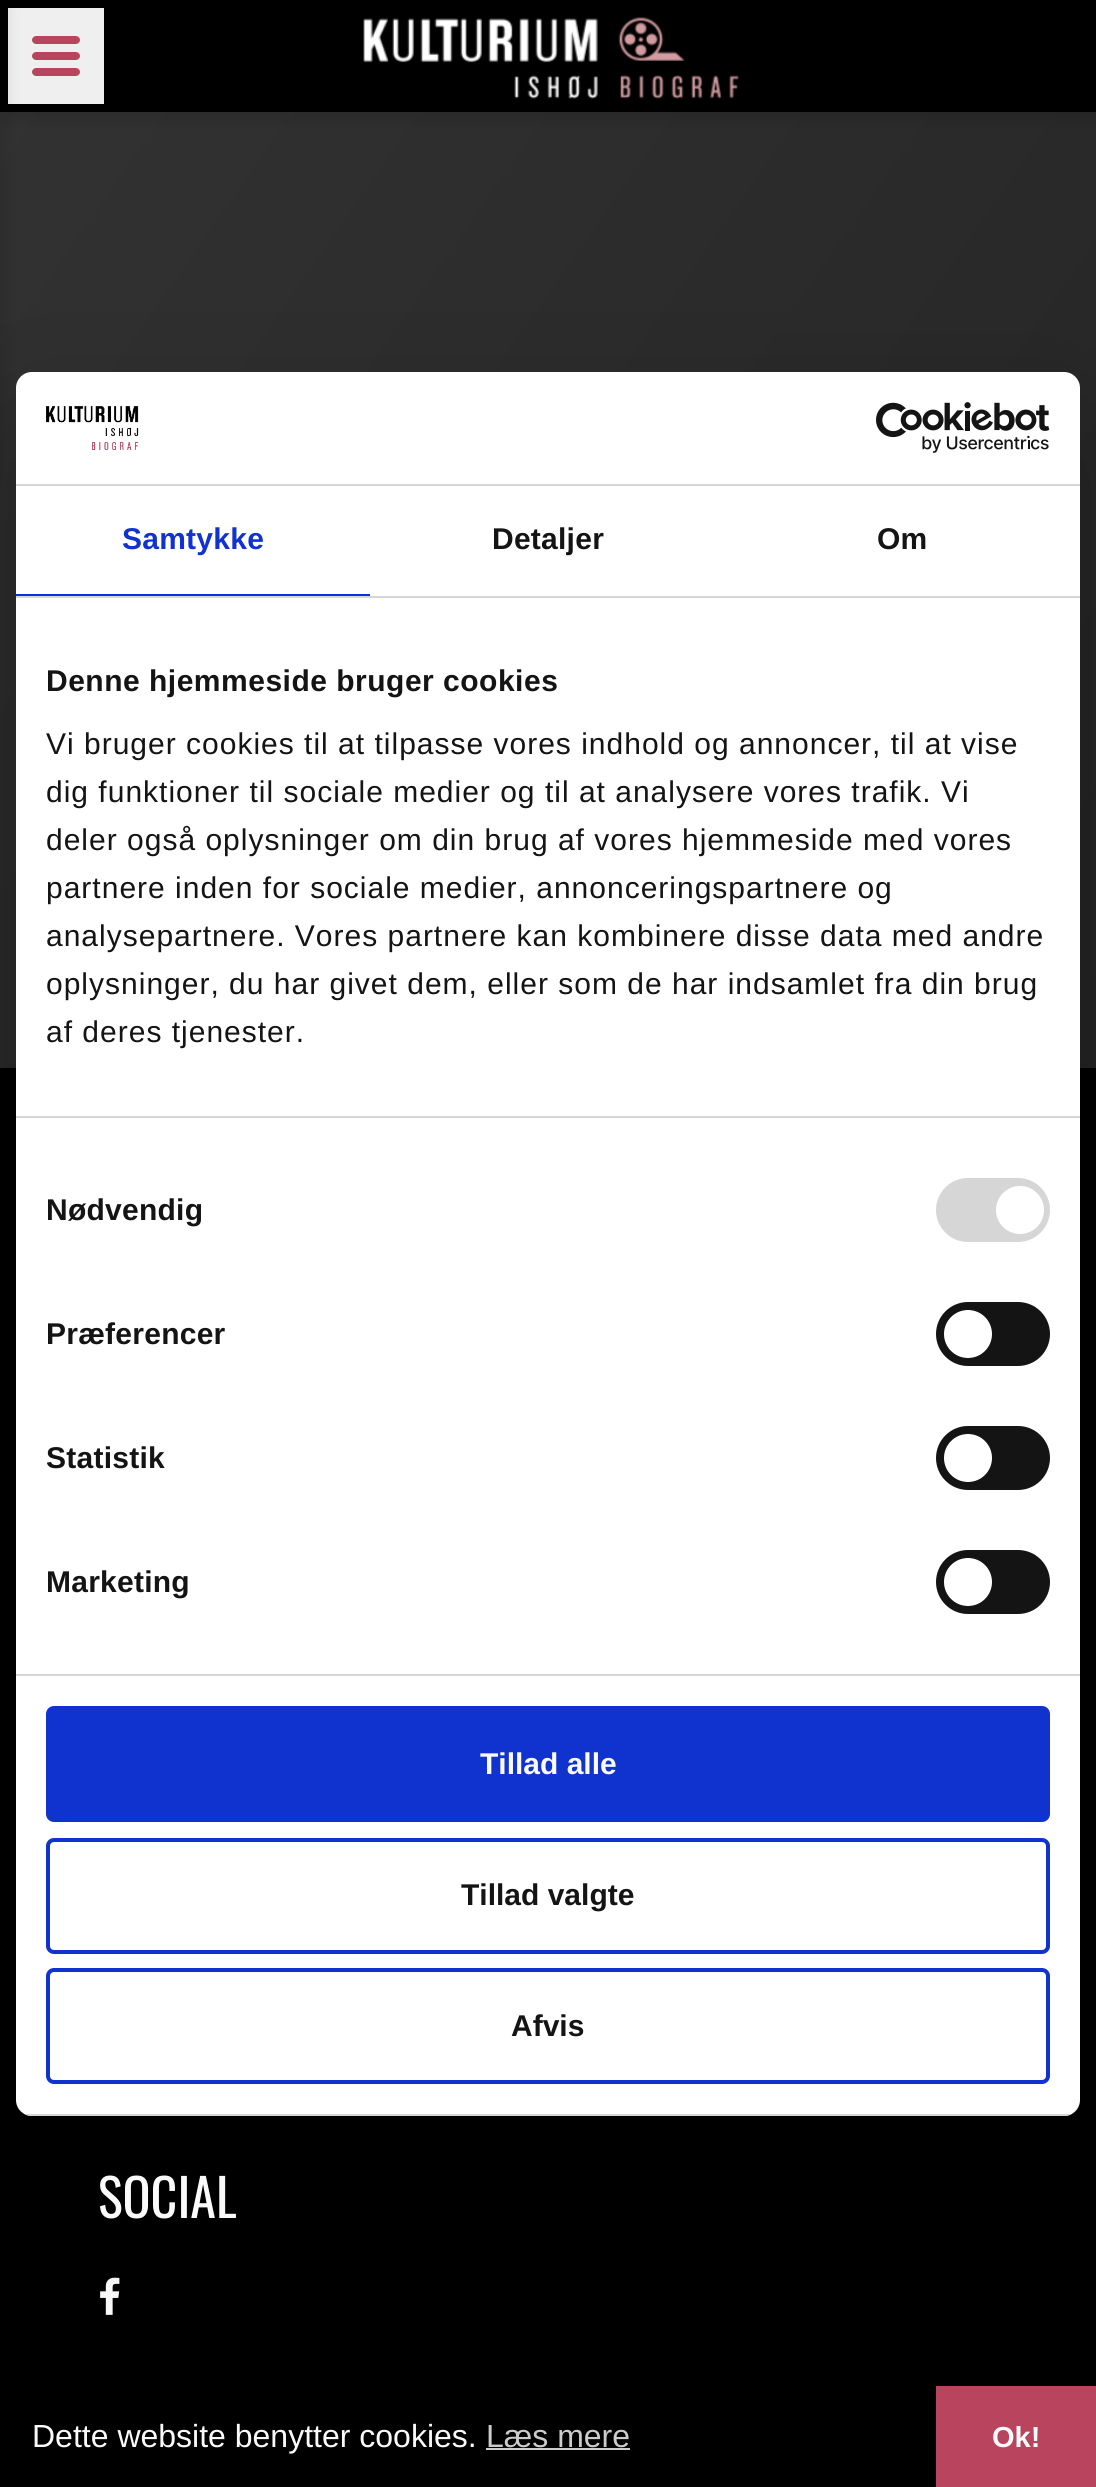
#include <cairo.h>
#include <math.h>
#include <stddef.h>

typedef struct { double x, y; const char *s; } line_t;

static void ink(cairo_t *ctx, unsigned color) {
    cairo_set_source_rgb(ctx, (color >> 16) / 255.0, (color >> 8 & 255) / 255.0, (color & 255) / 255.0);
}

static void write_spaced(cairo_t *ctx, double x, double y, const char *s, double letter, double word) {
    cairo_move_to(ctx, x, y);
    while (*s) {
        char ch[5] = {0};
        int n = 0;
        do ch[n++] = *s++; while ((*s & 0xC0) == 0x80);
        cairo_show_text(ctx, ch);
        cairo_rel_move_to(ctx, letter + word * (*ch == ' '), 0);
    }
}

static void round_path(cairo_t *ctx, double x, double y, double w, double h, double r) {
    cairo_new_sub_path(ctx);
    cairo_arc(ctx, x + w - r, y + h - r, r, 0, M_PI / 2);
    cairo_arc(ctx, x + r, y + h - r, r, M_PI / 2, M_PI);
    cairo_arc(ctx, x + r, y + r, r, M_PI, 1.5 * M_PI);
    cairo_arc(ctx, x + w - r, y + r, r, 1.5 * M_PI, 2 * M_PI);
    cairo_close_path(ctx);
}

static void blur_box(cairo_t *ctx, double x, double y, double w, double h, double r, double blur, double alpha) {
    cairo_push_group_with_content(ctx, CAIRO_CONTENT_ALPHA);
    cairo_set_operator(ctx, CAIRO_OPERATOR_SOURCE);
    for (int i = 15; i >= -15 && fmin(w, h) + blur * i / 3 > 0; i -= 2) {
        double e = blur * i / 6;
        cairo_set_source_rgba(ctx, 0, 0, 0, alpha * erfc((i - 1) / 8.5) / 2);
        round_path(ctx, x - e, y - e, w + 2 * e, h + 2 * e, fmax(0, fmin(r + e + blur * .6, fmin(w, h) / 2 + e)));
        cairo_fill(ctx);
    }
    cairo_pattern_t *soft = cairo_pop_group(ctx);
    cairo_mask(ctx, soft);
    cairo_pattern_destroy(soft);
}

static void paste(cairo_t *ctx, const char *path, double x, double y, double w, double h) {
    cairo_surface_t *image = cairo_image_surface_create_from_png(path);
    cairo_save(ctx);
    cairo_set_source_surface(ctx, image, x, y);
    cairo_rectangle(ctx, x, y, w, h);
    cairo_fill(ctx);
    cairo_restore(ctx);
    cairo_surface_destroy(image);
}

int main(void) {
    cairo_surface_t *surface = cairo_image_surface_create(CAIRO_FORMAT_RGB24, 1096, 2487);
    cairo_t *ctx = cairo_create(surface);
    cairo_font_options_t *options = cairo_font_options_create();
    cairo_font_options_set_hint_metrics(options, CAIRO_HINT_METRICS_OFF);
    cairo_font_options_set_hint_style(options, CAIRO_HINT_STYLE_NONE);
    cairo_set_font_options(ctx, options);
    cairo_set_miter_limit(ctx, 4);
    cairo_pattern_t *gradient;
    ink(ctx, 0xFFFFFF);
    cairo_paint(ctx);
    gradient = cairo_pattern_create_linear(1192, 931, -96, 29);
    cairo_pattern_add_color_stop_rgba(gradient, 0, 0.141, 0.141, 0.141, 1);
    cairo_pattern_add_color_stop_rgba(gradient, 1, 0.2, 0.2, 0.2, 1);
    cairo_set_source(ctx, gradient);
    cairo_pattern_destroy(gradient);
    cairo_rectangle(ctx, 0, 112, 1096, 956);
    cairo_fill(ctx);
    ink(ctx, 0x000000);
    cairo_rectangle(ctx, 0, 1068, 1096, 1318);
    cairo_fill(ctx);
    paste(ctx, "media/4.png", 100, 2277, 20, 38);
    ink(ctx, 0x000000);
    blur_box(ctx, 16, 436, 1064, 1744, 16, 68, 0.3);
    blur_box(ctx, 6, 8, 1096, 112, 0, 8, 0.11);
    ink(ctx, 0x000000);
    cairo_rectangle(ctx, 0, 0, 1096, 112);
    cairo_fill(ctx);
    ink(ctx, 0xEFEFEF);
    cairo_rectangle(ctx, 8, 8, 96, 96);
    cairo_fill(ctx);
    ink(ctx, 0x000000);
    blur_box(ctx, -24, 8, 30, 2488, 0, 8, 0.11);
    ink(ctx, 0xFFFFFF);
    round_path(ctx, 16, 372, 1064, 1744, 16);
    cairo_fill(ctx);
    ink(ctx, 0xD6D6D6);
    cairo_rectangle(ctx, 16, 484, 1064, 2);
    cairo_fill(ctx);
    paste(ctx, "media/1.png", 46, 406, 93, 44);
    paste(ctx, "media/2.png", 876, 402, 174, 51);
    cairo_rectangle(ctx, 16, 596, 1064, 2);
    cairo_fill(ctx);
    ink(ctx, 0x1032CF);
    cairo_rectangle(ctx, 16, 594, 354, 2);
    cairo_fill(ctx);
    cairo_select_font_face(ctx, "Liberation Sans", CAIRO_FONT_SLANT_NORMAL, CAIRO_FONT_WEIGHT_BOLD);
    cairo_set_font_size(ctx, 30);
    write_spaced(ctx, 122, 549, "Samtykke", 0.25, 0);
    ink(ctx, 0x141414);
    write_spaced(ctx, 492, 549, "Detaljer", 0.25, 0);
    write_spaced(ctx, 877, 549, "Om", 0.25, 0);
    ink(ctx, 0xD6D6D6);
    cairo_rectangle(ctx, 16, 1116, 1064, 2);
    cairo_fill(ctx);
    ink(ctx, 0x141414);
    write_spaced(ctx, 46, 691, "Denne hjemmeside bruger cookies", 0.5, 0);
    cairo_select_font_face(ctx, "Liberation Sans", CAIRO_FONT_SLANT_NORMAL, CAIRO_FONT_WEIGHT_NORMAL);
    {
        static const line_t items[] = {
            {46, 754, "Vi bruger cookies til at tilpasse vores indhold og annoncer, til at vise"},
            {46, 802, "dig funktioner til sociale medier og til at analysere vores trafik. Vi"},
            {46, 850, "deler også oplysninger om din brug af vores hjemmeside med vores"},
            {46, 898, "partnere inden for sociale medier, annonceringspartnere og"},
            {46, 946, "analysepartnere. Vores partnere kan kombinere disse data med andre"},
            {46, 994, "oplysninger, du har givet dem, eller som de har indsamlet fra din brug"},
            {46, 1042, "af deres tjenester."},
        };
        for (size_t i = 0; i < sizeof items / sizeof *items; i++) {
            write_spaced(ctx, items[i].x, items[i].y, items[i].s, 1, 0);
        }
    }
    ink(ctx, 0xD6D6D6);
    cairo_rectangle(ctx, 16, 1674, 1064, 2);
    cairo_fill(ctx);
    cairo_select_font_face(ctx, "Liberation Sans", CAIRO_FONT_SLANT_NORMAL, CAIRO_FONT_WEIGHT_BOLD);
    ink(ctx, 0x141414);
    write_spaced(ctx, 46, 1220, "Nødvendig", 0.25, 0);
    ink(ctx, 0xD6D6D6);
    round_path(ctx, 936, 1178, 114, 64, 32);
    cairo_fill(ctx);
    ink(ctx, 0xFFFFFF);
    cairo_arc(ctx, 1020, 1210, 24, 0, 2 * M_PI);
    cairo_fill(ctx);
    ink(ctx, 0x141414);
    write_spaced(ctx, 46, 1344, "Præferencer", 0.25, 0);
    round_path(ctx, 936, 1302, 114, 64, 32);
    cairo_fill(ctx);
    ink(ctx, 0xFFFFFF);
    cairo_arc(ctx, 968, 1334, 24, 0, 2 * M_PI);
    cairo_fill(ctx);
    ink(ctx, 0x141414);
    write_spaced(ctx, 46, 1468, "Statistik", 0.25, 0);
    round_path(ctx, 936, 1426, 114, 64, 32);
    cairo_fill(ctx);
    ink(ctx, 0xFFFFFF);
    cairo_arc(ctx, 968, 1458, 24, 0, 2 * M_PI);
    cairo_fill(ctx);
    ink(ctx, 0x141414);
    write_spaced(ctx, 46, 1592, "Marketing", 0.25, 0);
    round_path(ctx, 936, 1550, 114, 64, 32);
    cairo_fill(ctx);
    ink(ctx, 0xFFFFFF);
    cairo_arc(ctx, 968, 1582, 24, 0, 2 * M_PI);
    cairo_fill(ctx);
    cairo_save(ctx);
    round_path(ctx, 16, 372, 1064, 1744, 16);
    cairo_clip(ctx);
    ink(ctx, 0xD6D6D6);
    cairo_rectangle(ctx, 16, 2114, 1064, 2);
    cairo_fill(ctx);
    cairo_restore(ctx);
    ink(ctx, 0x1032CF);
    round_path(ctx, 48, 1708, 1000, 112, 6);
    cairo_fill_preserve(ctx);
    cairo_set_line_width(ctx, 4);
    cairo_stroke(ctx);
    ink(ctx, 0xFAFAFA);
    cairo_move_to(ctx, 480, 1774);
    cairo_show_text(ctx, "Tillad alle");
    round_path(ctx, 48, 1840, 1000, 112, 6);
    ink(ctx, 0x1032CF);
    cairo_stroke(ctx);
    ink(ctx, 0x141414);
    cairo_move_to(ctx, 461, 1905);
    cairo_show_text(ctx, "Tillad valgte");
    round_path(ctx, 48, 1970, 1000, 112, 6);
    ink(ctx, 0x1032CF);
    cairo_stroke(ctx);
    ink(ctx, 0x141414);
    cairo_move_to(ctx, 511, 2036);
    cairo_show_text(ctx, "Afvis");
    ink(ctx, 0xB8445E);
    cairo_new_path(ctx);
    cairo_move_to(ctx, 76, 60);
    cairo_line_to(ctx, 36, 60);
    cairo_curve_to(ctx, 34, 60, 32, 58, 32, 56);
    cairo_curve_to(ctx, 32, 54, 34, 52, 36, 52);
    cairo_line_to(ctx, 76, 52);
    cairo_curve_to(ctx, 78, 52, 80, 54, 80, 56);
    cairo_curve_to(ctx, 80, 58, 78, 60, 76, 60);
    cairo_close_path(ctx);
    cairo_move_to(ctx, 76, 76);
    cairo_line_to(ctx, 36, 76);
    cairo_curve_to(ctx, 34, 76, 32, 74, 32, 72);
    cairo_curve_to(ctx, 32, 70, 34, 68, 36, 68);
    cairo_line_to(ctx, 76, 68);
    cairo_curve_to(ctx, 78, 68, 80, 70, 80, 72);
    cairo_curve_to(ctx, 80, 74, 78, 76, 76, 76);
    cairo_close_path(ctx);
    cairo_move_to(ctx, 76, 44);
    cairo_line_to(ctx, 36, 44);
    cairo_curve_to(ctx, 34, 44, 32, 42, 32, 40);
    cairo_curve_to(ctx, 32, 38, 34, 36, 36, 36);
    cairo_line_to(ctx, 76, 36);
    cairo_curve_to(ctx, 78, 36, 80, 38, 80, 40);
    cairo_curve_to(ctx, 80, 42, 78, 44, 76, 44);
    cairo_close_path(ctx);
    cairo_fill(ctx);
    paste(ctx, "media/3.png", 363, 17, 376, 82);
    cairo_select_font_face(ctx, "Oswald", CAIRO_FONT_SLANT_NORMAL, CAIRO_FONT_WEIGHT_NORMAL);
    cairo_set_font_size(ctx, 52);
    ink(ctx, 0xFAFAFA);
    cairo_move_to(ctx, 98, 2218);
    cairo_show_text(ctx, "SOCIAL");
    ink(ctx, 0x000000);
    cairo_rectangle(ctx, 0, 2386, 936, 101);
    cairo_fill(ctx);
    cairo_select_font_face(ctx, "Liberation Sans", CAIRO_FONT_SLANT_NORMAL, CAIRO_FONT_WEIGHT_NORMAL);
    cairo_set_font_size(ctx, 32);
    ink(ctx, 0xFAFAFA);
    cairo_move_to(ctx, 32, 2447);
    cairo_show_text(ctx, "Dette website benytter cookies.");
    ink(ctx, 0xCCCCCC);
    cairo_move_to(ctx, 486, 2447);
    cairo_show_text(ctx, "Læs mere");
    cairo_rectangle(ctx, 486, 2448, 144, 2);
    cairo_fill(ctx);
    ink(ctx, 0xB8445E);
    cairo_rectangle(ctx, 936, 2386, 160, 101);
    cairo_fill(ctx);
    cairo_select_font_face(ctx, "Liberation Sans", CAIRO_FONT_SLANT_NORMAL, CAIRO_FONT_WEIGHT_BOLD);
    cairo_set_font_size(ctx, 29);
    ink(ctx, 0xFAFAFA);
    cairo_move_to(ctx, 992, 2447);
    cairo_show_text(ctx, "Ok!");
    cairo_surface_write_to_png(surface, "image.png");
    cairo_font_options_destroy(options);
    cairo_destroy(ctx);
    cairo_surface_destroy(surface);
    return 0;
}
